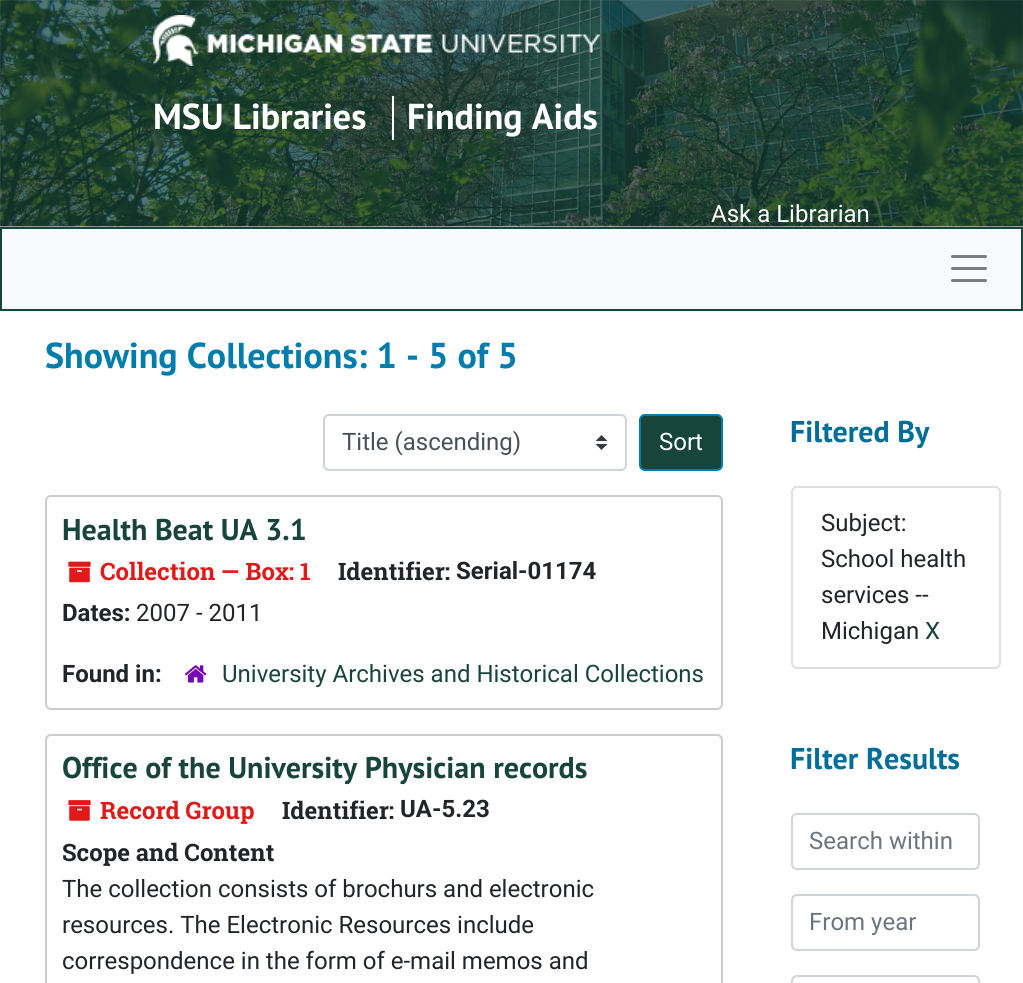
#include <cairo.h>
#include <math.h>
#include <stddef.h>

typedef struct { double x, y; const char *s; } line_t;

static void ink(cairo_t *ctx, unsigned color) {
    cairo_set_source_rgb(ctx, (color >> 16) / 255.0, (color >> 8 & 255) / 255.0, (color & 255) / 255.0);
}

static void round_path(cairo_t *ctx, double x, double y, double w, double h, double r) {
    cairo_new_sub_path(ctx);
    cairo_arc(ctx, x + w - r, y + h - r, r, 0, M_PI / 2);
    cairo_arc(ctx, x + r, y + h - r, r, M_PI / 2, M_PI);
    cairo_arc(ctx, x + r, y + r, r, M_PI, 1.5 * M_PI);
    cairo_arc(ctx, x + w - r, y + r, r, 1.5 * M_PI, 2 * M_PI);
    cairo_close_path(ctx);
}

static void paste(cairo_t *ctx, const char *path, double x, double y, double w, double h) {
    cairo_surface_t *image = cairo_image_surface_create_from_png(path);
    cairo_save(ctx);
    cairo_set_source_surface(ctx, image, x, y);
    cairo_rectangle(ctx, x, y, w, h);
    cairo_fill(ctx);
    cairo_restore(ctx);
    cairo_surface_destroy(image);
}

int main(void) {
    cairo_surface_t *surface = cairo_image_surface_create(CAIRO_FORMAT_RGB24, 1023, 983);
    cairo_t *ctx = cairo_create(surface);
    cairo_font_options_t *options = cairo_font_options_create();
    cairo_font_options_set_hint_metrics(options, CAIRO_HINT_METRICS_OFF);
    cairo_font_options_set_hint_style(options, CAIRO_HINT_STYLE_NONE);
    cairo_set_font_options(ctx, options);
    cairo_set_miter_limit(ctx, 4);
    ink(ctx, 0xFFFFFF);
    cairo_paint(ctx);
    paste(ctx, "media/1.png", 0, 0, 1023, 227);
    paste(ctx, "media/2.png", 153, 15, 447, 51);
    ink(ctx, 0xFFFFFF);
    cairo_rectangle(ctx, 392, 96, 2, 44);
    cairo_fill(ctx);
    cairo_select_font_face(ctx, "PT Sans", CAIRO_FONT_SLANT_NORMAL, CAIRO_FONT_WEIGHT_BOLD);
    cairo_set_font_size(ctx, 36);
    cairo_move_to(ctx, 153, 129);
    cairo_show_text(ctx, "MSU Libraries");
    cairo_move_to(ctx, 407, 129);
    cairo_show_text(ctx, "Finding Aids");
    cairo_select_font_face(ctx, "Roboto", CAIRO_FONT_SLANT_NORMAL, CAIRO_FONT_WEIGHT_NORMAL);
    cairo_set_font_size(ctx, 24);
    cairo_move_to(ctx, 711, 222);
    cairo_show_text(ctx, "Ask a Librarian");
    ink(ctx, 0xF8F9FA);
    cairo_rectangle(ctx, 1, 228, 1021, 82);
    cairo_fill_preserve(ctx);
    ink(ctx, 0x18453B);
    cairo_stroke(ctx);
    cairo_new_path(ctx);
    cairo_move_to(ctx, 952.5, 256.5);
    cairo_line_to(ctx, 985.5, 256.5);
    cairo_move_to(ctx, 952.5, 268.5);
    cairo_line_to(ctx, 985.5, 268.5);
    cairo_move_to(ctx, 952.5, 280.5);
    cairo_line_to(ctx, 985.5, 280.5);
    ink(ctx, 0x7C7D7D);
    cairo_set_line_width(ctx, 3);
    cairo_set_line_cap(ctx, CAIRO_LINE_CAP_ROUND);
    cairo_stroke(ctx);
    cairo_select_font_face(ctx, "PT Sans", CAIRO_FONT_SLANT_NORMAL, CAIRO_FONT_WEIGHT_BOLD);
    cairo_set_font_size(ctx, 36);
    ink(ctx, 0x007CAD);
    cairo_move_to(ctx, 45, 368);
    cairo_show_text(ctx, "Showing Collections: 1 - 5 of 5");
    paste(ctx, "media/3.png", 596, 435, 12, 15);
    round_path(ctx, 324, 415, 302, 55, 5);
    ink(ctx, 0xCED4DA);
    cairo_set_line_width(ctx, 2);
    cairo_set_line_cap(ctx, CAIRO_LINE_CAP_BUTT);
    cairo_stroke(ctx);
    cairo_select_font_face(ctx, "Roboto", CAIRO_FONT_SLANT_NORMAL, CAIRO_FONT_WEIGHT_NORMAL);
    cairo_set_font_size(ctx, 24);
    ink(ctx, 0x495057);
    cairo_move_to(ctx, 342, 450);
    cairo_show_text(ctx, "Title (ascending)");
    ink(ctx, 0x18453B);
    round_path(ctx, 640, 415, 82, 55, 5);
    cairo_fill_preserve(ctx);
    ink(ctx, 0x007CAD);
    cairo_stroke(ctx);
    ink(ctx, 0xFFFFFF);
    cairo_move_to(ctx, 659, 450);
    cairo_show_text(ctx, "Sort");
    round_path(ctx, 46, 496, 676, 213, 5);
    ink(ctx, 0xCCCCCC);
    cairo_stroke(ctx);
    cairo_select_font_face(ctx, "PT Sans", CAIRO_FONT_SLANT_NORMAL, CAIRO_FONT_WEIGHT_BOLD);
    cairo_set_font_size(ctx, 30);
    ink(ctx, 0x18453B);
    cairo_move_to(ctx, 62, 540);
    cairo_show_text(ctx, "Health Beat UA 3.1");
    paste(ctx, "media/4.png", 68, 561, 23, 22);
    cairo_select_font_face(ctx, "Roboto Slab", CAIRO_FONT_SLANT_NORMAL, CAIRO_FONT_WEIGHT_BOLD);
    cairo_set_font_size(ctx, 24);
    ink(ctx, 0xE01919);
    cairo_move_to(ctx, 100, 580);
    cairo_show_text(ctx, "Collection — Box: 1");
    ink(ctx, 0x212529);
    cairo_move_to(ctx, 338, 580);
    cairo_show_text(ctx, "Identifier:");
    cairo_select_font_face(ctx, "Roboto", CAIRO_FONT_SLANT_NORMAL, CAIRO_FONT_WEIGHT_BOLD);
    cairo_move_to(ctx, 456, 579);
    cairo_show_text(ctx, "Serial-01174");
    cairo_move_to(ctx, 62, 621);
    cairo_show_text(ctx, "Dates:");
    cairo_select_font_face(ctx, "Roboto", CAIRO_FONT_SLANT_NORMAL, CAIRO_FONT_WEIGHT_NORMAL);
    cairo_move_to(ctx, 136, 621);
    cairo_show_text(ctx, "2007 - 2011");
    cairo_select_font_face(ctx, "Roboto", CAIRO_FONT_SLANT_NORMAL, CAIRO_FONT_WEIGHT_BOLD);
    cairo_move_to(ctx, 62, 682);
    cairo_show_text(ctx, "Found in:");
    paste(ctx, "media/5.png", 184, 665, 23, 18);
    cairo_select_font_face(ctx, "Roboto", CAIRO_FONT_SLANT_NORMAL, CAIRO_FONT_WEIGHT_NORMAL);
    ink(ctx, 0x18453B);
    cairo_move_to(ctx, 222, 682);
    cairo_show_text(ctx, "University Archives and Historical Collections");
    round_path(ctx, 46, 735, 676, 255, 5);
    ink(ctx, 0xCCCCCC);
    cairo_stroke(ctx);
    cairo_select_font_face(ctx, "PT Sans", CAIRO_FONT_SLANT_NORMAL, CAIRO_FONT_WEIGHT_BOLD);
    cairo_set_font_size(ctx, 30);
    ink(ctx, 0x18453B);
    cairo_move_to(ctx, 62, 778);
    cairo_show_text(ctx, "Office of the University Physician records");
    paste(ctx, "media/6.png", 68, 800, 23, 21);
    cairo_select_font_face(ctx, "Roboto Slab", CAIRO_FONT_SLANT_NORMAL, CAIRO_FONT_WEIGHT_BOLD);
    cairo_set_font_size(ctx, 24);
    ink(ctx, 0xE01919);
    cairo_move_to(ctx, 100, 819);
    cairo_show_text(ctx, "Record Group");
    ink(ctx, 0x212529);
    cairo_move_to(ctx, 282, 819);
    cairo_show_text(ctx, "Identifier:");
    cairo_select_font_face(ctx, "Roboto", CAIRO_FONT_SLANT_NORMAL, CAIRO_FONT_WEIGHT_BOLD);
    cairo_move_to(ctx, 400, 817);
    cairo_show_text(ctx, "UA-5.23");
    cairo_select_font_face(ctx, "Roboto Slab", CAIRO_FONT_SLANT_NORMAL, CAIRO_FONT_WEIGHT_BOLD);
    cairo_move_to(ctx, 62, 861);
    cairo_show_text(ctx, "Scope and Content");
    cairo_select_font_face(ctx, "Roboto", CAIRO_FONT_SLANT_NORMAL, CAIRO_FONT_WEIGHT_NORMAL);
    {
        static const line_t items[] = {
            {62, 897, "The collection consists of brochurs and electronic"},
            {62, 933, "resources. The Electronic Resources include"},
            {62, 969, "correspondence in the form of e-mail memos and"},
        };
        for (size_t i = 0; i < sizeof items / sizeof *items; i++) {
            cairo_move_to(ctx, items[i].x, items[i].y);
            cairo_show_text(ctx, items[i].s);
        }
    }
    cairo_select_font_face(ctx, "PT Sans", CAIRO_FONT_SLANT_NORMAL, CAIRO_FONT_WEIGHT_BOLD);
    cairo_set_font_size(ctx, 30);
    ink(ctx, 0x006E99);
    cairo_move_to(ctx, 790, 442);
    cairo_show_text(ctx, "Filtered By");
    round_path(ctx, 792, 487, 208, 181, 5);
    ink(ctx, 0xDFDFDF);
    cairo_stroke(ctx);
    cairo_select_font_face(ctx, "Roboto", CAIRO_FONT_SLANT_NORMAL, CAIRO_FONT_WEIGHT_NORMAL);
    cairo_set_font_size(ctx, 24);
    ink(ctx, 0x212529);
    {
        static const line_t items[] = {
            {821, 531, "Subject:"},
            {821, 567, "School health"},
            {821, 603, "services --"},
            {821, 639, "Michigan"},
        };
        for (size_t i = 0; i < sizeof items / sizeof *items; i++) {
            cairo_move_to(ctx, items[i].x, items[i].y);
            cairo_show_text(ctx, items[i].s);
        }
    }
    ink(ctx, 0x18453B);
    cairo_move_to(ctx, 925, 639);
    cairo_show_text(ctx, "X");
    cairo_select_font_face(ctx, "PT Sans", CAIRO_FONT_SLANT_NORMAL, CAIRO_FONT_WEIGHT_BOLD);
    cairo_set_font_size(ctx, 30);
    ink(ctx, 0x006E99);
    cairo_move_to(ctx, 790, 769);
    cairo_show_text(ctx, "Filter Results");
    round_path(ctx, 792, 814, 187, 55, 5);
    ink(ctx, 0xCED4DA);
    cairo_stroke(ctx);
    cairo_select_font_face(ctx, "Roboto", CAIRO_FONT_SLANT_NORMAL, CAIRO_FONT_WEIGHT_NORMAL);
    cairo_set_font_size(ctx, 24);
    ink(ctx, 0x6C757D);
    cairo_move_to(ctx, 809, 849);
    cairo_show_text(ctx, "Search within");
    round_path(ctx, 792, 895, 187, 55, 5);
    ink(ctx, 0xCED4DA);
    cairo_stroke(ctx);
    ink(ctx, 0x6C757D);
    cairo_move_to(ctx, 809, 930);
    cairo_show_text(ctx, "From year");
    round_path(ctx, 792, 976, 187, 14, 5);
    ink(ctx, 0xCED4DA);
    cairo_stroke(ctx);
    cairo_surface_write_to_png(surface, "image.png");
    cairo_font_options_destroy(options);
    cairo_destroy(ctx);
    cairo_surface_destroy(surface);
    return 0;
}
